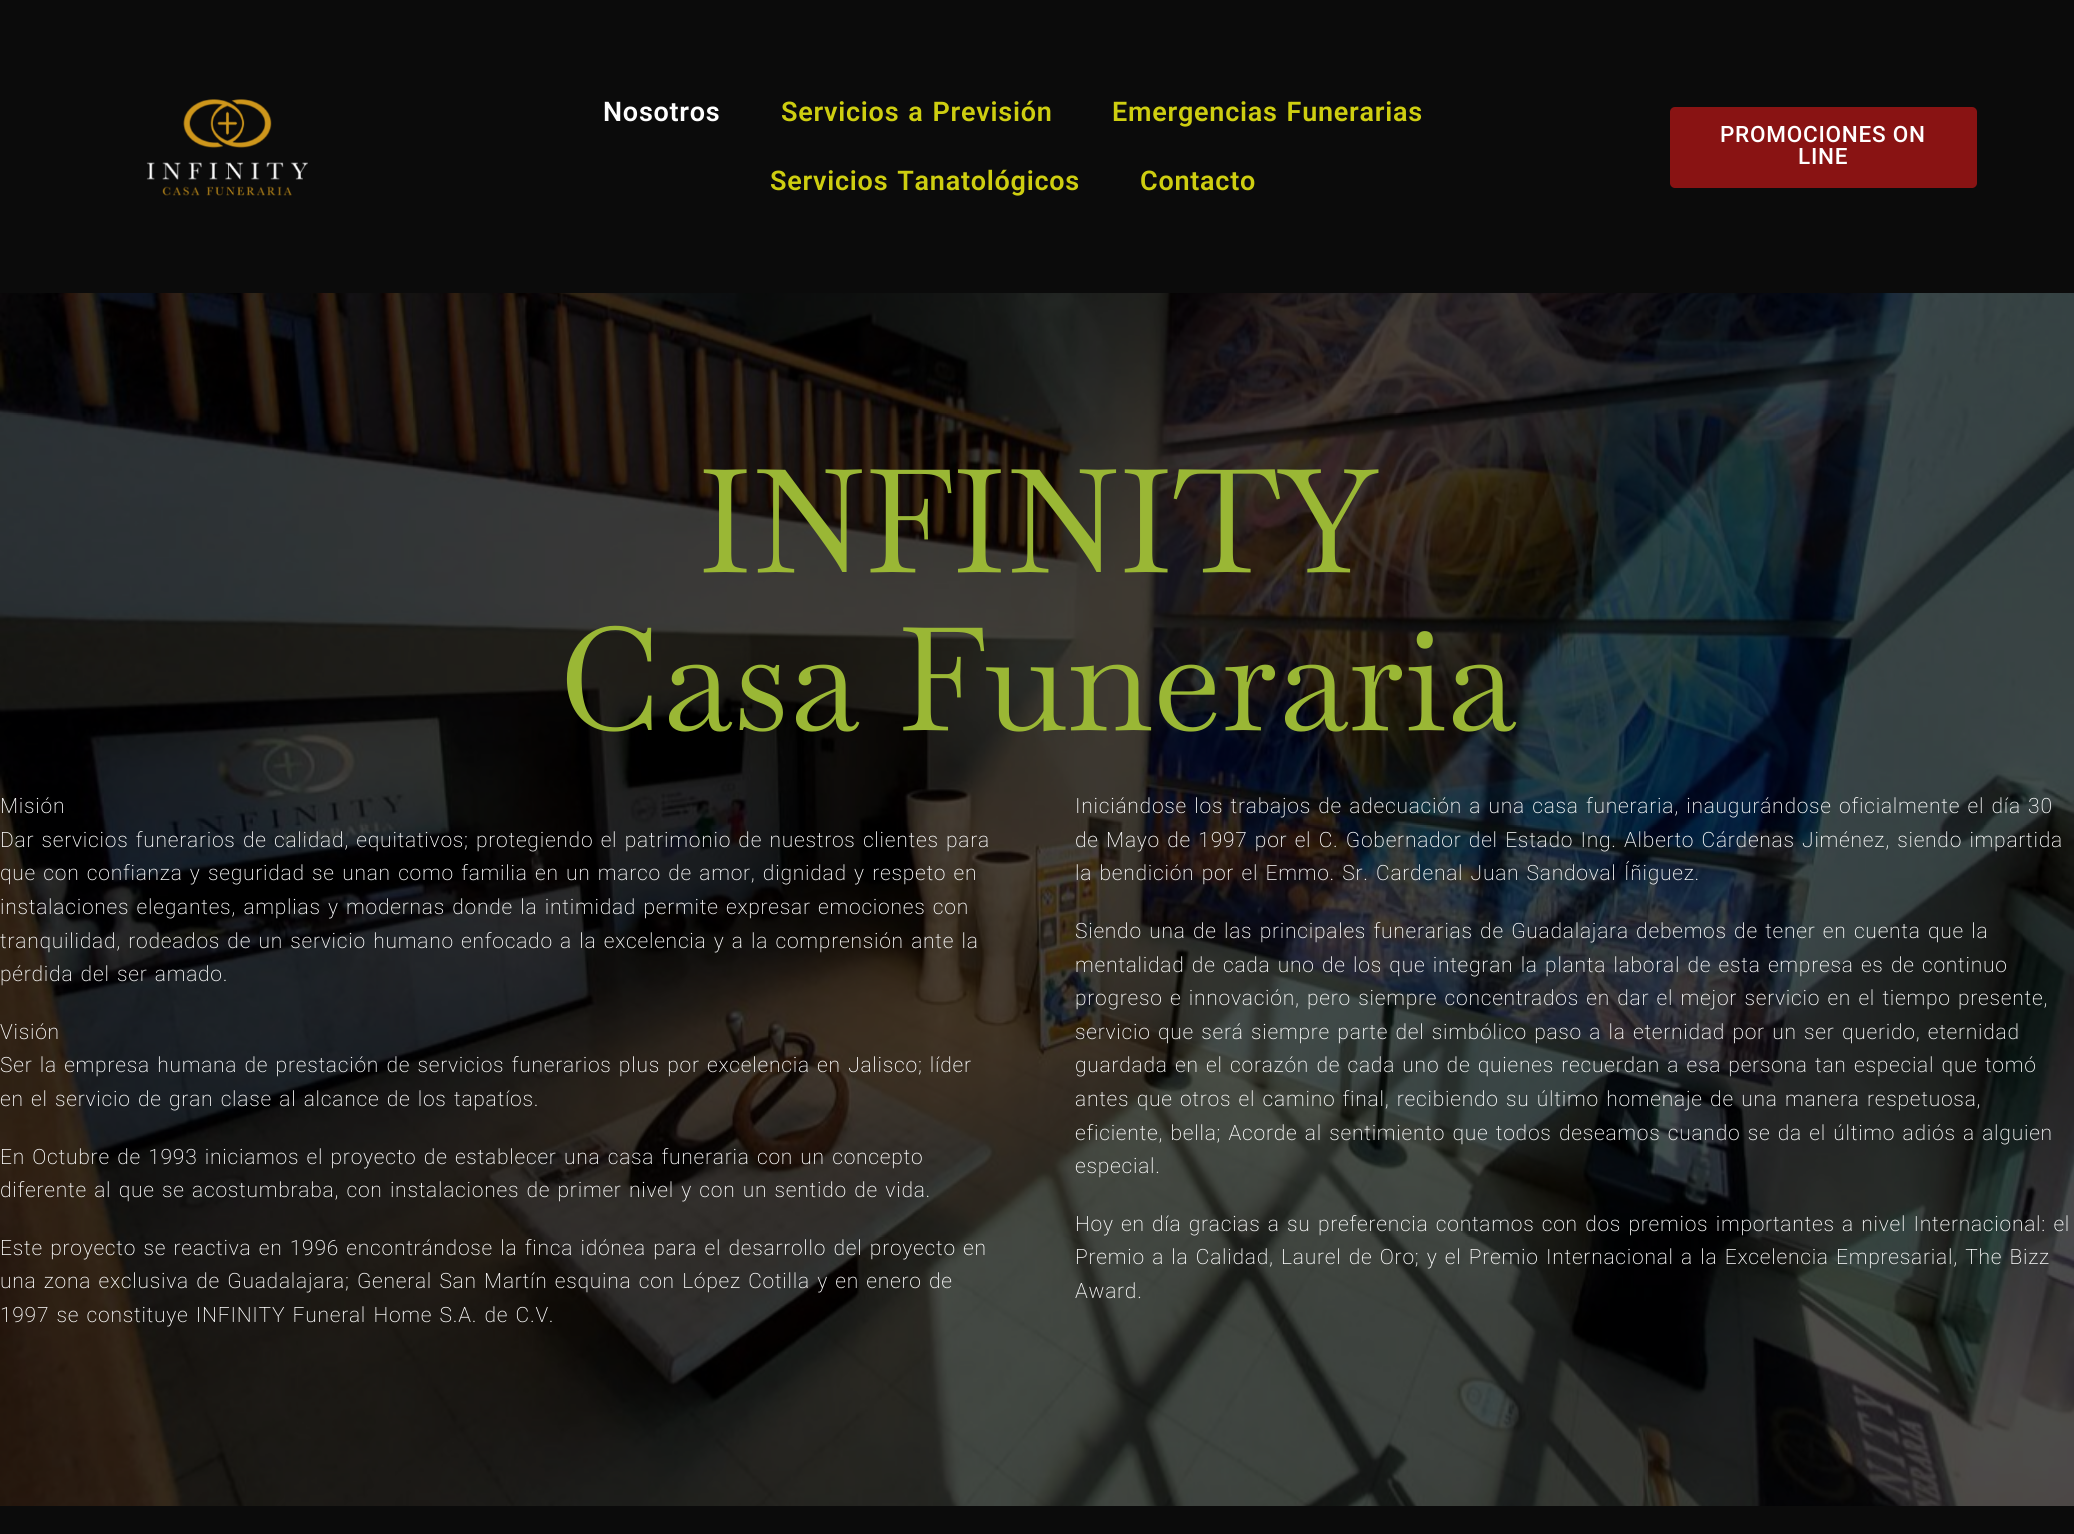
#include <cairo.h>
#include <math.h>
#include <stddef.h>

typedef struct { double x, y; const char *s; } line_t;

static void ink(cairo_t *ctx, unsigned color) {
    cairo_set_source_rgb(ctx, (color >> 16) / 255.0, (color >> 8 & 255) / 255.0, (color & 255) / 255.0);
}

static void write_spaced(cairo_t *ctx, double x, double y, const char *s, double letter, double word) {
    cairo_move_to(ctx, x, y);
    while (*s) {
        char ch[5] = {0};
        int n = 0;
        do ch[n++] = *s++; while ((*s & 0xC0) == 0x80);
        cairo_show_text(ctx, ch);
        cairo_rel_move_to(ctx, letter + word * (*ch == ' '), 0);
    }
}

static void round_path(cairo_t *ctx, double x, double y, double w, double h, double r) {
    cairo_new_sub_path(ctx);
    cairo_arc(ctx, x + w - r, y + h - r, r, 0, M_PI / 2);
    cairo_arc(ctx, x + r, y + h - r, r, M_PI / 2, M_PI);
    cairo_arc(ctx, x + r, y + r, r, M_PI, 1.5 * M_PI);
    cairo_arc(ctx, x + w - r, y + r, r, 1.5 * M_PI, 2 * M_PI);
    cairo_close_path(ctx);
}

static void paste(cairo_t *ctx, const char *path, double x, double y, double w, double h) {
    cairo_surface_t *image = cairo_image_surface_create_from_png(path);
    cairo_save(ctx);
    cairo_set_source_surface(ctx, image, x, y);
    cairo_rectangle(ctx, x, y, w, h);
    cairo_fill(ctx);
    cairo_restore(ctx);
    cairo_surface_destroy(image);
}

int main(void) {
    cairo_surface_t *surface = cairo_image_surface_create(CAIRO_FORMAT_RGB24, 2074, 1534);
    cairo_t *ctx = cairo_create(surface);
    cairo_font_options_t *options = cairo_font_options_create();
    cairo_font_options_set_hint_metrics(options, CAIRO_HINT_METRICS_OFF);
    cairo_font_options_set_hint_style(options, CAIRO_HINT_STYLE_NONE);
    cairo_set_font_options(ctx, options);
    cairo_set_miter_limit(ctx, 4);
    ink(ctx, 0x0B0B0B);
    cairo_paint(ctx);
    paste(ctx, "media/1.png", 146, 99, 162, 97);
    cairo_select_font_face(ctx, "Roboto SemiBold", CAIRO_FONT_SLANT_NORMAL, CAIRO_FONT_WEIGHT_NORMAL);
    cairo_set_font_size(ctx, 27);
    ink(ctx, 0xFFFFFF);
    write_spaced(ctx, 603, 121, "Nosotros", 0.75, 0);
    ink(ctx, 0xCECE10);
    {
        static const line_t items[] = {
            {781, 121, "Servicios a Previsión"},
            {1112, 121, "Emergencias Funerarias"},
            {770, 190, "Servicios Tanatológicos"},
        };
        for (size_t i = 0; i < sizeof items / sizeof *items; i++) {
            write_spaced(ctx, items[i].x, items[i].y, items[i].s, 0.75, 1.5);
        }
    }
    write_spaced(ctx, 1140, 190, "Contacto", 0.75, 0);
    ink(ctx, 0x891313);
    round_path(ctx, 1670, 107, 307, 81, 5);
    cairo_fill(ctx);
    cairo_select_font_face(ctx, "Roboto Medium", CAIRO_FONT_SLANT_NORMAL, CAIRO_FONT_WEIGHT_NORMAL);
    cairo_set_font_size(ctx, 22.5);
    ink(ctx, 0xFFFFFF);
    write_spaced(ctx, 1720, 142, "PROMOCIONES ON", 0.75, 0);
    write_spaced(ctx, 1798, 164, "LINE", 0.75, 0);
    paste(ctx, "media/2.png", 0, 293, 2074, 1213);
    cairo_select_font_face(ctx, "Baskervville", CAIRO_FONT_SLANT_NORMAL, CAIRO_FONT_WEIGHT_NORMAL);
    cairo_set_font_size(ctx, 144);
    ink(ctx, 0x9AB735);
    cairo_move_to(ctx, 698, 572);
    cairo_show_text(ctx, "INFINITY");
    cairo_move_to(ctx, 558, 730);
    cairo_show_text(ctx, "Casa Funeraria");
    cairo_select_font_face(ctx, "Roboto ExtraLight", CAIRO_FONT_SLANT_NORMAL, CAIRO_FONT_WEIGHT_NORMAL);
    cairo_set_font_size(ctx, 21);
    ink(ctx, 0xFFFFFF);
    write_spaced(ctx, 0, 813, "Misión", 0.75, 0);
    {
        static const line_t items[] = {
            {0, 847, "Dar servicios funerarios de calidad, equitativos; protegiendo el patrimonio de nuestros clientes para"},
            {0, 880, "que con confianza y seguridad se unan como familia en un marco de amor, dignidad y respeto en"},
            {0, 914, "instalaciones elegantes, amplias y modernas donde la intimidad permite expresar emociones con"},
            {0, 948, "tranquilidad, rodeados de un servicio humano enfocado a la excelencia y a la comprensión ante la"},
            {0, 981, "pérdida del ser amado."},
        };
        for (size_t i = 0; i < sizeof items / sizeof *items; i++) {
            write_spaced(ctx, items[i].x, items[i].y, items[i].s, 0.75, 1.5);
        }
    }
    write_spaced(ctx, 0, 1039, "Visión", 0.75, 0);
    {
        static const line_t items[] = {
            {0, 1072, "Ser la empresa humana de prestación de servicios funerarios plus por excelencia en Jalisco; líder"},
            {0, 1106, "en el servicio de gran clase al alcance de los tapatíos."},
            {0, 1164, "En Octubre de 1993 iniciamos el proyecto de establecer una casa funeraria con un concepto"},
            {0, 1197, "diferente al que se acostumbraba, con instalaciones de primer nivel y con un sentido de vida."},
            {0, 1255, "Este proyecto se reactiva en 1996 encontrándose la finca idónea para el desarrollo del proyecto en"},
            {0, 1288, "una zona exclusiva de Guadalajara; General San Martín esquina con López Cotilla y en enero de"},
            {0, 1322, "1997 se constituye INFINITY Funeral Home S.A. de C.V."},
            {1075, 813, "Iniciándose los trabajos de adecuación a una casa funeraria, inaugurándose oficialmente el día 30"},
            {1075, 847, "de Mayo de 1997 por el C. Gobernador del Estado Ing. Alberto Cárdenas Jiménez, siendo impartida"},
            {1075, 880, "la bendición por el Emmo. Sr. Cardenal Juan Sandoval Íñiguez."},
            {1075, 938, "Siendo una de las principales funerarias de Guadalajara debemos de tener en cuenta que la"},
            {1075, 972, "mentalidad de cada uno de los que integran la planta laboral de esta empresa es de continuo"},
            {1075, 1005, "progreso e innovación, pero siempre concentrados en dar el mejor servicio en el tiempo presente,"},
            {1075, 1039, "servicio que será siempre parte del simbólico paso a la eternidad por un ser querido, eternidad"},
            {1075, 1072, "guardada en el corazón de cada uno de quienes recuerdan a esa persona tan especial que tomó"},
            {1075, 1106, "antes que otros el camino final, recibiendo su último homenaje de una manera respetuosa,"},
            {1075, 1140, "eficiente, bella; Acorde al sentimiento que todos deseamos cuando se da el último adiós a alguien"},
        };
        for (size_t i = 0; i < sizeof items / sizeof *items; i++) {
            write_spaced(ctx, items[i].x, items[i].y, items[i].s, 0.75, 1.5);
        }
    }
    write_spaced(ctx, 1075, 1173, "especial.", 0.75, 0);
    write_spaced(ctx, 1075, 1231, "Hoy en día gracias a su preferencia contamos con dos premios importantes a nivel Internacional: el", 0.75, 1.5);
    write_spaced(ctx, 1075, 1264, "Premio a la Calidad, Laurel de Oro; y el Premio Internacional a la Excelencia Empresarial, The Bizz", 0.75, 1.5);
    write_spaced(ctx, 1075, 1298, "Award.", 0.75, 0);
    cairo_surface_write_to_png(surface, "image.png");
    cairo_font_options_destroy(options);
    cairo_destroy(ctx);
    cairo_surface_destroy(surface);
    return 0;
}
